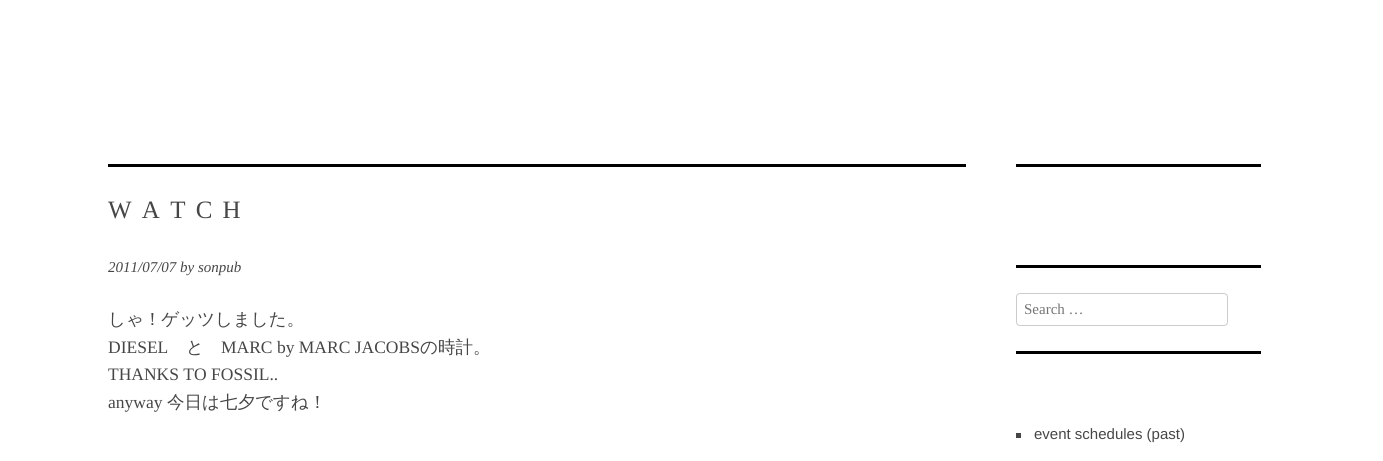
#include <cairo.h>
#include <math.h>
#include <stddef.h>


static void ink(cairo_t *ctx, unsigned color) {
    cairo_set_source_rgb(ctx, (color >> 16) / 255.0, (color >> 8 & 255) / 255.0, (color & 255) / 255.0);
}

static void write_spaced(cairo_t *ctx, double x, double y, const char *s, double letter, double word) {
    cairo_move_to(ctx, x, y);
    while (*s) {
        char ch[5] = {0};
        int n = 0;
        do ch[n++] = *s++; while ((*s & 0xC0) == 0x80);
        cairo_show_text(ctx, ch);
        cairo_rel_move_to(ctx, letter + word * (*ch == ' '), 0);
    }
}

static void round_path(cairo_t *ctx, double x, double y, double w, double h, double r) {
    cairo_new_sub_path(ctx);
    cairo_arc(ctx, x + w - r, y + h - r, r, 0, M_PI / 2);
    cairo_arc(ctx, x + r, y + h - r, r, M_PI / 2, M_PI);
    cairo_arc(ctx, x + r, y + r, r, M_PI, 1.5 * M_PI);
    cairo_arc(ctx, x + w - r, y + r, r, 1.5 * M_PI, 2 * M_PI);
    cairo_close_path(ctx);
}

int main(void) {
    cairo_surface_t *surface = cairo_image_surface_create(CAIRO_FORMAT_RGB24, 1383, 461);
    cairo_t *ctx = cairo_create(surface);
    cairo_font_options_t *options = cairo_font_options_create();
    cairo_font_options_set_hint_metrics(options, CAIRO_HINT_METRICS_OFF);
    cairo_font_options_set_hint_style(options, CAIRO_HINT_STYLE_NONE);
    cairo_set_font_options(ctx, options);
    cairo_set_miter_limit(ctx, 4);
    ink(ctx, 0xFFFFFF);
    cairo_paint(ctx);
    ink(ctx, 0x000000);
    cairo_rectangle(ctx, 108, 164, 858, 3);
    cairo_fill(ctx);
    cairo_select_font_face(ctx, "Liberation Serif", CAIRO_FONT_SLANT_NORMAL, CAIRO_FONT_WEIGHT_NORMAL);
    cairo_set_font_size(ctx, 25);
    ink(ctx, 0x464646);
    write_spaced(ctx, 108, 218, "W A T C H", 2, 0);
    cairo_select_font_face(ctx, "Liberation Serif", CAIRO_FONT_SLANT_ITALIC, CAIRO_FONT_WEIGHT_NORMAL);
    cairo_set_font_size(ctx, 15);
    cairo_move_to(ctx, 108, 272);
    cairo_show_text(ctx, "2011/07/07 by sonpub");
    cairo_select_font_face(ctx, "WenQuanYi Zen Hei Medium", CAIRO_FONT_SLANT_NORMAL, CAIRO_FONT_WEIGHT_NORMAL);
    cairo_set_font_size(ctx, 17.5);
    cairo_move_to(ctx, 108, 325);
    cairo_show_text(ctx, "しゃ！ゲッツしました。");
    cairo_select_font_face(ctx, "Liberation Serif", CAIRO_FONT_SLANT_NORMAL, CAIRO_FONT_WEIGHT_NORMAL);
    cairo_move_to(ctx, 108, 353);
    cairo_show_text(ctx, "DIESEL");
    cairo_select_font_face(ctx, "WenQuanYi Zen Hei Medium", CAIRO_FONT_SLANT_NORMAL, CAIRO_FONT_WEIGHT_NORMAL);
    cairo_move_to(ctx, 186, 353);
    cairo_show_text(ctx, "と");
    cairo_select_font_face(ctx, "Liberation Serif", CAIRO_FONT_SLANT_NORMAL, CAIRO_FONT_WEIGHT_NORMAL);
    cairo_move_to(ctx, 221, 353);
    cairo_show_text(ctx, "MARC by MARC JACOBS");
    cairo_select_font_face(ctx, "WenQuanYi Zen Hei Medium", CAIRO_FONT_SLANT_NORMAL, CAIRO_FONT_WEIGHT_NORMAL);
    cairo_move_to(ctx, 420, 353);
    cairo_show_text(ctx, "の時計。");
    cairo_select_font_face(ctx, "Liberation Serif", CAIRO_FONT_SLANT_NORMAL, CAIRO_FONT_WEIGHT_NORMAL);
    cairo_move_to(ctx, 108, 380);
    cairo_show_text(ctx, "THANKS TO FOSSIL..");
    cairo_move_to(ctx, 108, 408);
    cairo_show_text(ctx, "anyway");
    cairo_select_font_face(ctx, "WenQuanYi Zen Hei Medium", CAIRO_FONT_SLANT_NORMAL, CAIRO_FONT_WEIGHT_NORMAL);
    cairo_move_to(ctx, 167, 408);
    cairo_show_text(ctx, "今日は七夕ですね！");
    ink(ctx, 0x000000);
    cairo_rectangle(ctx, 1016, 164, 245, 3);
    cairo_fill(ctx);
    cairo_rectangle(ctx, 1016, 265, 245, 3);
    cairo_fill(ctx);
    round_path(ctx, 1016.5, 293.5, 211, 32, 3.5);
    ink(ctx, 0xCCCCCC);
    cairo_set_line_width(ctx, 1);
    cairo_stroke(ctx);
    cairo_select_font_face(ctx, "Liberation Serif", CAIRO_FONT_SLANT_NORMAL, CAIRO_FONT_WEIGHT_NORMAL);
    cairo_set_font_size(ctx, 15);
    ink(ctx, 0x757575);
    cairo_move_to(ctx, 1024, 314);
    cairo_show_text(ctx, "Search …");
    ink(ctx, 0x000000);
    cairo_rectangle(ctx, 1016, 351, 245, 3);
    cairo_fill(ctx);
    ink(ctx, 0x464646);
    cairo_rectangle(ctx, 1016, 433, 5, 5);
    cairo_fill(ctx);
    cairo_select_font_face(ctx, "Liberation Sans", CAIRO_FONT_SLANT_NORMAL, CAIRO_FONT_WEIGHT_NORMAL);
    cairo_move_to(ctx, 1034, 439);
    cairo_show_text(ctx, "event schedules (past)");
    cairo_surface_write_to_png(surface, "image.png");
    cairo_font_options_destroy(options);
    cairo_destroy(ctx);
    cairo_surface_destroy(surface);
    return 0;
}
